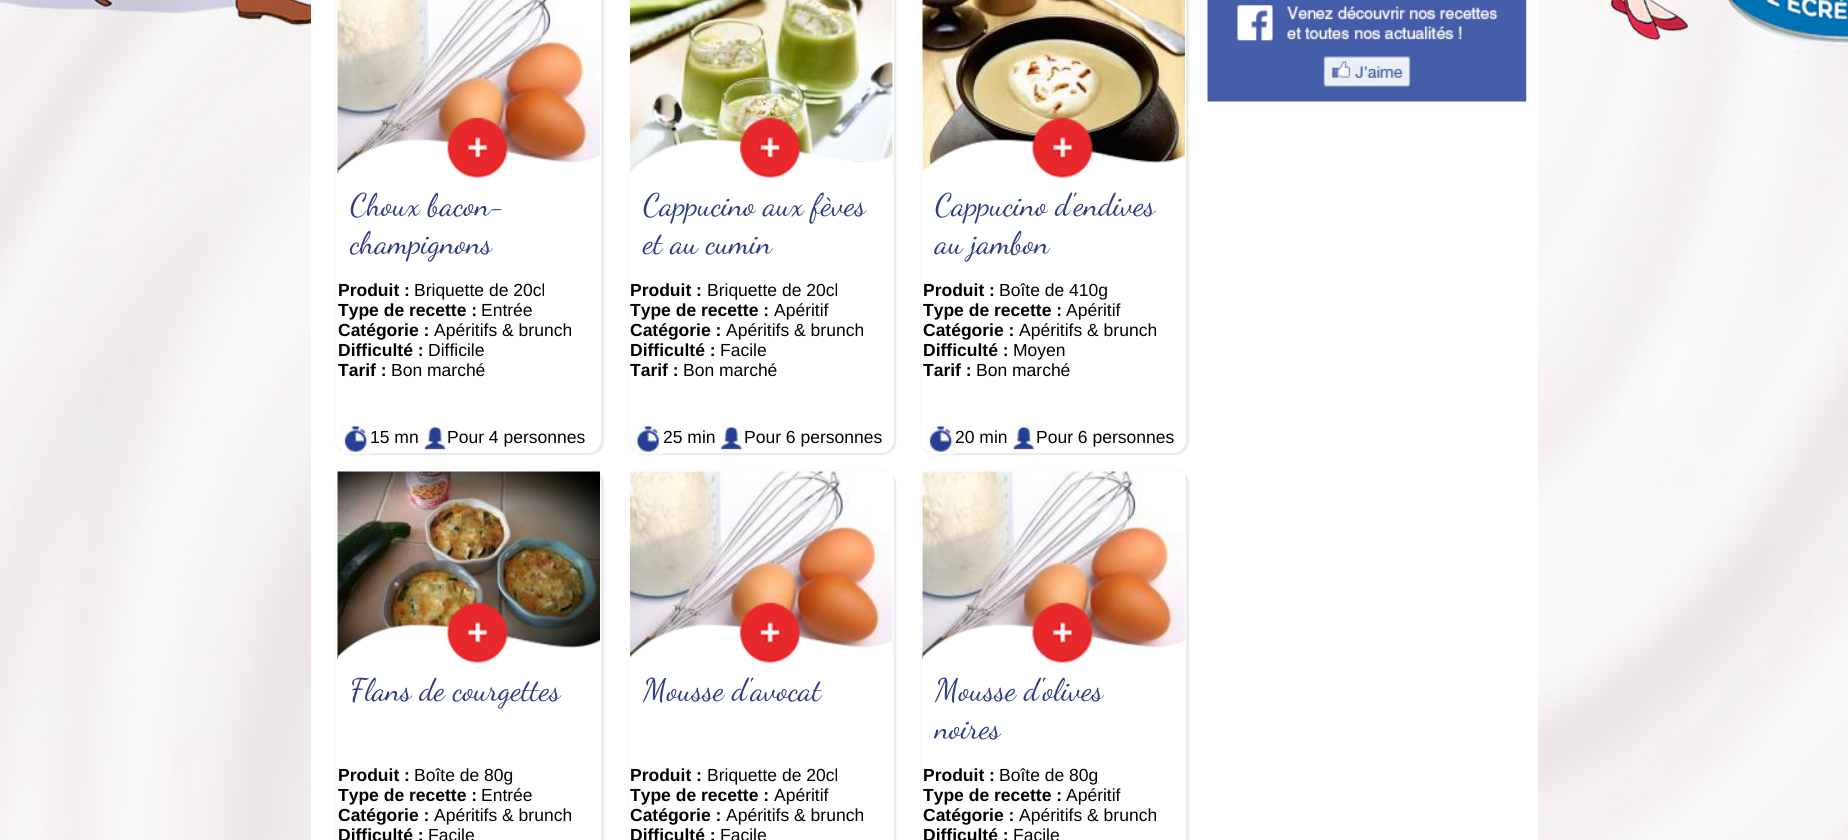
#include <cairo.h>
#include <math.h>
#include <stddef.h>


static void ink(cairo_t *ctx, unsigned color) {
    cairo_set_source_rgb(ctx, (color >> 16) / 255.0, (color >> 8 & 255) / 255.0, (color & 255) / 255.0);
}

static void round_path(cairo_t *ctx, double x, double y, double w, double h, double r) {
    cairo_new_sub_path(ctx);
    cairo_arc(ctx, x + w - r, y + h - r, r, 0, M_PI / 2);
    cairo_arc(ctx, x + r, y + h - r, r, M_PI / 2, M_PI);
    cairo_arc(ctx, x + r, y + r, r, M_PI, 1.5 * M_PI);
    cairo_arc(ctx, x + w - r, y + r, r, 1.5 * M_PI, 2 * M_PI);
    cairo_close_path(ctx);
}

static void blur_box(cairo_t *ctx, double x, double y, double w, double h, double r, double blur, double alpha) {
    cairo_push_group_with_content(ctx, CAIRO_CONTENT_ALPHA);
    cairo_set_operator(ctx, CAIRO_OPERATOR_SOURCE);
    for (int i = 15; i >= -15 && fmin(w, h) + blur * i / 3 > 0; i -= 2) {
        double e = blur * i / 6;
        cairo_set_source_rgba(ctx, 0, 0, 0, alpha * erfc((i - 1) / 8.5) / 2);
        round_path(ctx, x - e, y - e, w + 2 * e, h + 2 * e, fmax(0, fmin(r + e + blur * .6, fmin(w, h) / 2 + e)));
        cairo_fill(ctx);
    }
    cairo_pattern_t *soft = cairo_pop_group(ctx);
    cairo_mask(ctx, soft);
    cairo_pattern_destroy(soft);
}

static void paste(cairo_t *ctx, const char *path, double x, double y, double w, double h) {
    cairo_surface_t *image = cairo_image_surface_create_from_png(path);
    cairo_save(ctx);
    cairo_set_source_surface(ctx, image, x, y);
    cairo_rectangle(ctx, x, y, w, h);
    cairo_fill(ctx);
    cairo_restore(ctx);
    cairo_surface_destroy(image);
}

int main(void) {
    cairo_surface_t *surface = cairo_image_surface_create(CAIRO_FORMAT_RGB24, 1848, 840);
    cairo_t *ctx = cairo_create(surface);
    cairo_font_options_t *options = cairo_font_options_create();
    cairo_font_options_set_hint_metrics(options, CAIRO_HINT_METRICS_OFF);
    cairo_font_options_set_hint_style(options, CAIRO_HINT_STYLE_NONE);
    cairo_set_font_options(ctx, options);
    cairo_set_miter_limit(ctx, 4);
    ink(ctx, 0xFFFFFF);
    cairo_paint(ctx);
    paste(ctx, "media/1.png", 0, 0, 1848, 840);
    ink(ctx, 0xFFFFFF);
    cairo_rectangle(ctx, 311, 0, 1227, 840);
    cairo_fill(ctx);
    paste(ctx, "media/2.png", 1207, 0, 320, 102);
    cairo_save(ctx);
    cairo_set_fill_rule(ctx, CAIRO_FILL_RULE_EVEN_ODD);
    cairo_new_path(ctx);
    cairo_move_to(ctx, 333, 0);
    cairo_line_to(ctx, 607, 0);
    cairo_line_to(ctx, 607, 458);
    cairo_line_to(ctx, 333, 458);
    cairo_close_path(ctx);
    cairo_move_to(ctx, 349, -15);
    cairo_line_to(ctx, 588, -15);
    cairo_curve_to(ctx, 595, -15, 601, -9, 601, -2);
    cairo_line_to(ctx, 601, 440);
    cairo_curve_to(ctx, 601, 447, 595, 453, 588, 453);
    cairo_line_to(ctx, 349, 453);
    cairo_curve_to(ctx, 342, 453, 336, 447, 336, 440);
    cairo_line_to(ctx, 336, -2);
    cairo_curve_to(ctx, 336, -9, 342, -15, 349, -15);
    cairo_close_path(ctx);
    cairo_clip(ctx);
    ink(ctx, 0xEAEAEA);
    blur_box(ctx, 336, -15, 268, 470, 14, 0.5, 1);
    cairo_restore(ctx);
    paste(ctx, "media/3.png", 337, 0, 263, 174);
    paste(ctx, "media/4.png", 337, 117, 263, 61);
    cairo_select_font_face(ctx, "Dancing Script", CAIRO_FONT_SLANT_NORMAL, CAIRO_FONT_WEIGHT_NORMAL);
    cairo_set_font_size(ctx, 31.25);
    ink(ctx, 0x2E3D82);
    cairo_move_to(ctx, 350, 215);
    cairo_show_text(ctx, "Choux bacon-");
    cairo_move_to(ctx, 350, 253);
    cairo_show_text(ctx, "champignons");
    cairo_select_font_face(ctx, "Liberation Sans", CAIRO_FONT_SLANT_NORMAL, CAIRO_FONT_WEIGHT_BOLD);
    cairo_set_font_size(ctx, 17.5);
    ink(ctx, 0x000000);
    cairo_move_to(ctx, 338, 296);
    cairo_show_text(ctx, "Produit :");
    cairo_select_font_face(ctx, "Liberation Sans", CAIRO_FONT_SLANT_NORMAL, CAIRO_FONT_WEIGHT_NORMAL);
    cairo_move_to(ctx, 414, 296);
    cairo_show_text(ctx, "Briquette de 20cl");
    cairo_select_font_face(ctx, "Liberation Sans", CAIRO_FONT_SLANT_NORMAL, CAIRO_FONT_WEIGHT_BOLD);
    cairo_move_to(ctx, 338, 316);
    cairo_show_text(ctx, "Type de recette :");
    cairo_select_font_face(ctx, "Liberation Sans", CAIRO_FONT_SLANT_NORMAL, CAIRO_FONT_WEIGHT_NORMAL);
    cairo_move_to(ctx, 481, 316);
    cairo_show_text(ctx, "Entrée");
    cairo_select_font_face(ctx, "Liberation Sans", CAIRO_FONT_SLANT_NORMAL, CAIRO_FONT_WEIGHT_BOLD);
    cairo_move_to(ctx, 338, 336);
    cairo_show_text(ctx, "Catégorie :");
    cairo_select_font_face(ctx, "Liberation Sans", CAIRO_FONT_SLANT_NORMAL, CAIRO_FONT_WEIGHT_NORMAL);
    cairo_move_to(ctx, 434, 336);
    cairo_show_text(ctx, "Apéritifs & brunch");
    cairo_select_font_face(ctx, "Liberation Sans", CAIRO_FONT_SLANT_NORMAL, CAIRO_FONT_WEIGHT_BOLD);
    cairo_move_to(ctx, 338, 356);
    cairo_show_text(ctx, "Difficulté :");
    cairo_select_font_face(ctx, "Liberation Sans", CAIRO_FONT_SLANT_NORMAL, CAIRO_FONT_WEIGHT_NORMAL);
    cairo_move_to(ctx, 428, 356);
    cairo_show_text(ctx, "Difficile");
    cairo_select_font_face(ctx, "Liberation Sans", CAIRO_FONT_SLANT_NORMAL, CAIRO_FONT_WEIGHT_BOLD);
    cairo_move_to(ctx, 338, 376);
    cairo_show_text(ctx, "Tarif :");
    cairo_select_font_face(ctx, "Liberation Sans", CAIRO_FONT_SLANT_NORMAL, CAIRO_FONT_WEIGHT_NORMAL);
    cairo_move_to(ctx, 391, 376);
    cairo_show_text(ctx, "Bon marché");
    paste(ctx, "media/5.png", 341, 424, 29, 30);
    cairo_move_to(ctx, 370, 443);
    cairo_show_text(ctx, "15 mn");
    paste(ctx, "media/6.png", 423, 426, 25, 26);
    cairo_move_to(ctx, 447, 443);
    cairo_show_text(ctx, "Pour 4 personnes");
    cairo_save(ctx);
    cairo_set_fill_rule(ctx, CAIRO_FILL_RULE_EVEN_ODD);
    cairo_new_path(ctx);
    cairo_move_to(ctx, 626, 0);
    cairo_line_to(ctx, 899, 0);
    cairo_line_to(ctx, 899, 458);
    cairo_line_to(ctx, 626, 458);
    cairo_close_path(ctx);
    cairo_move_to(ctx, 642, -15);
    cairo_line_to(ctx, 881, -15);
    cairo_curve_to(ctx, 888, -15, 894, -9, 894, -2);
    cairo_line_to(ctx, 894, 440);
    cairo_curve_to(ctx, 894, 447, 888, 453, 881, 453);
    cairo_line_to(ctx, 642, 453);
    cairo_curve_to(ctx, 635, 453, 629, 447, 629, 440);
    cairo_line_to(ctx, 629, -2);
    cairo_curve_to(ctx, 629, -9, 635, -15, 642, -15);
    cairo_close_path(ctx);
    cairo_clip(ctx);
    ink(ctx, 0xEAEAEA);
    blur_box(ctx, 629, -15, 267, 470, 14, 0.5, 1);
    cairo_restore(ctx);
    paste(ctx, "media/7.png", 630, 0, 263, 174);
    paste(ctx, "media/8.png", 630, 117, 262, 61);
    cairo_select_font_face(ctx, "Dancing Script", CAIRO_FONT_SLANT_NORMAL, CAIRO_FONT_WEIGHT_NORMAL);
    cairo_set_font_size(ctx, 31.25);
    ink(ctx, 0x2E3D82);
    cairo_move_to(ctx, 643, 215);
    cairo_show_text(ctx, "Cappucino aux fèves");
    cairo_move_to(ctx, 643, 253);
    cairo_show_text(ctx, "et au cumin");
    cairo_select_font_face(ctx, "Liberation Sans", CAIRO_FONT_SLANT_NORMAL, CAIRO_FONT_WEIGHT_BOLD);
    cairo_set_font_size(ctx, 17.5);
    ink(ctx, 0x000000);
    cairo_move_to(ctx, 630, 296);
    cairo_show_text(ctx, "Produit :");
    cairo_select_font_face(ctx, "Liberation Sans", CAIRO_FONT_SLANT_NORMAL, CAIRO_FONT_WEIGHT_NORMAL);
    cairo_move_to(ctx, 707, 296);
    cairo_show_text(ctx, "Briquette de 20cl");
    cairo_select_font_face(ctx, "Liberation Sans", CAIRO_FONT_SLANT_NORMAL, CAIRO_FONT_WEIGHT_BOLD);
    cairo_move_to(ctx, 630, 316);
    cairo_show_text(ctx, "Type de recette :");
    cairo_select_font_face(ctx, "Liberation Sans", CAIRO_FONT_SLANT_NORMAL, CAIRO_FONT_WEIGHT_NORMAL);
    cairo_move_to(ctx, 774, 316);
    cairo_show_text(ctx, "Apéritif");
    cairo_select_font_face(ctx, "Liberation Sans", CAIRO_FONT_SLANT_NORMAL, CAIRO_FONT_WEIGHT_BOLD);
    cairo_move_to(ctx, 630, 336);
    cairo_show_text(ctx, "Catégorie :");
    cairo_select_font_face(ctx, "Liberation Sans", CAIRO_FONT_SLANT_NORMAL, CAIRO_FONT_WEIGHT_NORMAL);
    cairo_move_to(ctx, 726, 336);
    cairo_show_text(ctx, "Apéritifs & brunch");
    cairo_select_font_face(ctx, "Liberation Sans", CAIRO_FONT_SLANT_NORMAL, CAIRO_FONT_WEIGHT_BOLD);
    cairo_move_to(ctx, 630, 356);
    cairo_show_text(ctx, "Difficulté :");
    cairo_select_font_face(ctx, "Liberation Sans", CAIRO_FONT_SLANT_NORMAL, CAIRO_FONT_WEIGHT_NORMAL);
    cairo_move_to(ctx, 720, 356);
    cairo_show_text(ctx, "Facile");
    cairo_select_font_face(ctx, "Liberation Sans", CAIRO_FONT_SLANT_NORMAL, CAIRO_FONT_WEIGHT_BOLD);
    cairo_move_to(ctx, 630, 376);
    cairo_show_text(ctx, "Tarif :");
    cairo_select_font_face(ctx, "Liberation Sans", CAIRO_FONT_SLANT_NORMAL, CAIRO_FONT_WEIGHT_NORMAL);
    cairo_move_to(ctx, 683, 376);
    cairo_show_text(ctx, "Bon marché");
    paste(ctx, "media/9.png", 633, 424, 30, 30);
    cairo_move_to(ctx, 663, 443);
    cairo_show_text(ctx, "25 min");
    paste(ctx, "media/10.png", 720, 426, 24, 26);
    cairo_move_to(ctx, 744, 443);
    cairo_show_text(ctx, "Pour 6 personnes");
    cairo_save(ctx);
    cairo_set_fill_rule(ctx, CAIRO_FILL_RULE_EVEN_ODD);
    cairo_new_path(ctx);
    cairo_move_to(ctx, 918, 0);
    cairo_line_to(ctx, 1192, 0);
    cairo_line_to(ctx, 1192, 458);
    cairo_line_to(ctx, 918, 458);
    cairo_close_path(ctx);
    cairo_move_to(ctx, 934, -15);
    cairo_line_to(ctx, 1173, -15);
    cairo_curve_to(ctx, 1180, -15, 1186, -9, 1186, -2);
    cairo_line_to(ctx, 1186, 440);
    cairo_curve_to(ctx, 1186, 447, 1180, 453, 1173, 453);
    cairo_line_to(ctx, 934, 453);
    cairo_curve_to(ctx, 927, 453, 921, 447, 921, 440);
    cairo_line_to(ctx, 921, -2);
    cairo_curve_to(ctx, 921, -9, 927, -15, 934, -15);
    cairo_close_path(ctx);
    cairo_clip(ctx);
    ink(ctx, 0xEAEAEA);
    blur_box(ctx, 921, -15, 268, 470, 14, 0.5, 1);
    cairo_restore(ctx);
    paste(ctx, "media/11.png", 922, 0, 263, 174);
    paste(ctx, "media/12.png", 922, 117, 263, 61);
    cairo_select_font_face(ctx, "Dancing Script", CAIRO_FONT_SLANT_NORMAL, CAIRO_FONT_WEIGHT_NORMAL);
    cairo_set_font_size(ctx, 31.25);
    ink(ctx, 0x2E3D82);
    cairo_move_to(ctx, 935, 215);
    cairo_show_text(ctx, "Cappucino d'endives");
    cairo_move_to(ctx, 935, 253);
    cairo_show_text(ctx, "au jambon");
    cairo_select_font_face(ctx, "Liberation Sans", CAIRO_FONT_SLANT_NORMAL, CAIRO_FONT_WEIGHT_BOLD);
    cairo_set_font_size(ctx, 17.5);
    ink(ctx, 0x000000);
    cairo_move_to(ctx, 923, 296);
    cairo_show_text(ctx, "Produit :");
    cairo_select_font_face(ctx, "Liberation Sans", CAIRO_FONT_SLANT_NORMAL, CAIRO_FONT_WEIGHT_NORMAL);
    cairo_move_to(ctx, 999, 296);
    cairo_show_text(ctx, "Boîte de 410g");
    cairo_select_font_face(ctx, "Liberation Sans", CAIRO_FONT_SLANT_NORMAL, CAIRO_FONT_WEIGHT_BOLD);
    cairo_move_to(ctx, 923, 316);
    cairo_show_text(ctx, "Type de recette :");
    cairo_select_font_face(ctx, "Liberation Sans", CAIRO_FONT_SLANT_NORMAL, CAIRO_FONT_WEIGHT_NORMAL);
    cairo_move_to(ctx, 1066, 316);
    cairo_show_text(ctx, "Apéritif");
    cairo_select_font_face(ctx, "Liberation Sans", CAIRO_FONT_SLANT_NORMAL, CAIRO_FONT_WEIGHT_BOLD);
    cairo_move_to(ctx, 923, 336);
    cairo_show_text(ctx, "Catégorie :");
    cairo_select_font_face(ctx, "Liberation Sans", CAIRO_FONT_SLANT_NORMAL, CAIRO_FONT_WEIGHT_NORMAL);
    cairo_move_to(ctx, 1019, 336);
    cairo_show_text(ctx, "Apéritifs & brunch");
    cairo_select_font_face(ctx, "Liberation Sans", CAIRO_FONT_SLANT_NORMAL, CAIRO_FONT_WEIGHT_BOLD);
    cairo_move_to(ctx, 923, 356);
    cairo_show_text(ctx, "Difficulté :");
    cairo_select_font_face(ctx, "Liberation Sans", CAIRO_FONT_SLANT_NORMAL, CAIRO_FONT_WEIGHT_NORMAL);
    cairo_move_to(ctx, 1013, 356);
    cairo_show_text(ctx, "Moyen");
    cairo_select_font_face(ctx, "Liberation Sans", CAIRO_FONT_SLANT_NORMAL, CAIRO_FONT_WEIGHT_BOLD);
    cairo_move_to(ctx, 923, 376);
    cairo_show_text(ctx, "Tarif :");
    cairo_select_font_face(ctx, "Liberation Sans", CAIRO_FONT_SLANT_NORMAL, CAIRO_FONT_WEIGHT_NORMAL);
    cairo_move_to(ctx, 976, 376);
    cairo_show_text(ctx, "Bon marché");
    paste(ctx, "media/5.png", 926, 424, 29, 30);
    cairo_move_to(ctx, 955, 443);
    cairo_show_text(ctx, "20 min");
    paste(ctx, "media/13.png", 1012, 426, 25, 26);
    cairo_move_to(ctx, 1036, 443);
    cairo_show_text(ctx, "Pour 6 personnes");
    cairo_save(ctx);
    cairo_set_fill_rule(ctx, CAIRO_FILL_RULE_EVEN_ODD);
    cairo_new_path(ctx);
    cairo_move_to(ctx, 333, 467);
    cairo_line_to(ctx, 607, 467);
    cairo_line_to(ctx, 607, 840);
    cairo_line_to(ctx, 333, 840);
    cairo_close_path(ctx);
    cairo_move_to(ctx, 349, 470);
    cairo_line_to(ctx, 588, 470);
    cairo_curve_to(ctx, 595, 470, 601, 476, 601, 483);
    cairo_line_to(ctx, 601, 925);
    cairo_curve_to(ctx, 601, 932, 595, 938, 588, 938);
    cairo_line_to(ctx, 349, 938);
    cairo_curve_to(ctx, 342, 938, 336, 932, 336, 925);
    cairo_line_to(ctx, 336, 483);
    cairo_curve_to(ctx, 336, 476, 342, 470, 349, 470);
    cairo_close_path(ctx);
    cairo_clip(ctx);
    ink(ctx, 0xEAEAEA);
    blur_box(ctx, 336, 470, 268, 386, 14, 0.5, 1);
    cairo_restore(ctx);
    paste(ctx, "media/14.png", 337, 471, 263, 188);
    paste(ctx, "media/15.png", 337, 602, 263, 61);
    cairo_select_font_face(ctx, "Dancing Script", CAIRO_FONT_SLANT_NORMAL, CAIRO_FONT_WEIGHT_NORMAL);
    cairo_set_font_size(ctx, 31.25);
    ink(ctx, 0x2E3D82);
    cairo_move_to(ctx, 350, 700);
    cairo_show_text(ctx, "Flans de courgettes");
    cairo_select_font_face(ctx, "Liberation Sans", CAIRO_FONT_SLANT_NORMAL, CAIRO_FONT_WEIGHT_BOLD);
    cairo_set_font_size(ctx, 17.5);
    ink(ctx, 0x000000);
    cairo_move_to(ctx, 338, 781);
    cairo_show_text(ctx, "Produit :");
    cairo_select_font_face(ctx, "Liberation Sans", CAIRO_FONT_SLANT_NORMAL, CAIRO_FONT_WEIGHT_NORMAL);
    cairo_move_to(ctx, 414, 781);
    cairo_show_text(ctx, "Boîte de 80g");
    cairo_select_font_face(ctx, "Liberation Sans", CAIRO_FONT_SLANT_NORMAL, CAIRO_FONT_WEIGHT_BOLD);
    cairo_move_to(ctx, 338, 801);
    cairo_show_text(ctx, "Type de recette :");
    cairo_select_font_face(ctx, "Liberation Sans", CAIRO_FONT_SLANT_NORMAL, CAIRO_FONT_WEIGHT_NORMAL);
    cairo_move_to(ctx, 481, 801);
    cairo_show_text(ctx, "Entrée");
    cairo_select_font_face(ctx, "Liberation Sans", CAIRO_FONT_SLANT_NORMAL, CAIRO_FONT_WEIGHT_BOLD);
    cairo_move_to(ctx, 338, 821);
    cairo_show_text(ctx, "Catégorie :");
    cairo_select_font_face(ctx, "Liberation Sans", CAIRO_FONT_SLANT_NORMAL, CAIRO_FONT_WEIGHT_NORMAL);
    cairo_move_to(ctx, 434, 821);
    cairo_show_text(ctx, "Apéritifs & brunch");
    cairo_select_font_face(ctx, "Liberation Sans", CAIRO_FONT_SLANT_NORMAL, CAIRO_FONT_WEIGHT_BOLD);
    cairo_move_to(ctx, 338, 841);
    cairo_show_text(ctx, "Difficulté :");
    cairo_select_font_face(ctx, "Liberation Sans", CAIRO_FONT_SLANT_NORMAL, CAIRO_FONT_WEIGHT_NORMAL);
    cairo_move_to(ctx, 428, 841);
    cairo_show_text(ctx, "Facile");
    cairo_save(ctx);
    cairo_set_fill_rule(ctx, CAIRO_FILL_RULE_EVEN_ODD);
    cairo_new_path(ctx);
    cairo_move_to(ctx, 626, 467);
    cairo_line_to(ctx, 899, 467);
    cairo_line_to(ctx, 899, 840);
    cairo_line_to(ctx, 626, 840);
    cairo_close_path(ctx);
    cairo_move_to(ctx, 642, 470);
    cairo_line_to(ctx, 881, 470);
    cairo_curve_to(ctx, 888, 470, 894, 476, 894, 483);
    cairo_line_to(ctx, 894, 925);
    cairo_curve_to(ctx, 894, 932, 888, 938, 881, 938);
    cairo_line_to(ctx, 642, 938);
    cairo_curve_to(ctx, 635, 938, 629, 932, 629, 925);
    cairo_line_to(ctx, 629, 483);
    cairo_curve_to(ctx, 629, 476, 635, 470, 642, 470);
    cairo_close_path(ctx);
    cairo_clip(ctx);
    ink(ctx, 0xEAEAEA);
    blur_box(ctx, 629, 470, 267, 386, 14, 0.5, 1);
    cairo_restore(ctx);
    paste(ctx, "media/16.png", 630, 471, 263, 188);
    paste(ctx, "media/17.png", 630, 602, 262, 61);
    cairo_select_font_face(ctx, "Dancing Script", CAIRO_FONT_SLANT_NORMAL, CAIRO_FONT_WEIGHT_NORMAL);
    cairo_set_font_size(ctx, 31.25);
    ink(ctx, 0x2E3D82);
    cairo_move_to(ctx, 643, 700);
    cairo_show_text(ctx, "Mousse d'avocat");
    cairo_select_font_face(ctx, "Liberation Sans", CAIRO_FONT_SLANT_NORMAL, CAIRO_FONT_WEIGHT_BOLD);
    cairo_set_font_size(ctx, 17.5);
    ink(ctx, 0x000000);
    cairo_move_to(ctx, 630, 781);
    cairo_show_text(ctx, "Produit :");
    cairo_select_font_face(ctx, "Liberation Sans", CAIRO_FONT_SLANT_NORMAL, CAIRO_FONT_WEIGHT_NORMAL);
    cairo_move_to(ctx, 707, 781);
    cairo_show_text(ctx, "Briquette de 20cl");
    cairo_select_font_face(ctx, "Liberation Sans", CAIRO_FONT_SLANT_NORMAL, CAIRO_FONT_WEIGHT_BOLD);
    cairo_move_to(ctx, 630, 801);
    cairo_show_text(ctx, "Type de recette :");
    cairo_select_font_face(ctx, "Liberation Sans", CAIRO_FONT_SLANT_NORMAL, CAIRO_FONT_WEIGHT_NORMAL);
    cairo_move_to(ctx, 774, 801);
    cairo_show_text(ctx, "Apéritif");
    cairo_select_font_face(ctx, "Liberation Sans", CAIRO_FONT_SLANT_NORMAL, CAIRO_FONT_WEIGHT_BOLD);
    cairo_move_to(ctx, 630, 821);
    cairo_show_text(ctx, "Catégorie :");
    cairo_select_font_face(ctx, "Liberation Sans", CAIRO_FONT_SLANT_NORMAL, CAIRO_FONT_WEIGHT_NORMAL);
    cairo_move_to(ctx, 726, 821);
    cairo_show_text(ctx, "Apéritifs & brunch");
    cairo_select_font_face(ctx, "Liberation Sans", CAIRO_FONT_SLANT_NORMAL, CAIRO_FONT_WEIGHT_BOLD);
    cairo_move_to(ctx, 630, 841);
    cairo_show_text(ctx, "Difficulté :");
    cairo_select_font_face(ctx, "Liberation Sans", CAIRO_FONT_SLANT_NORMAL, CAIRO_FONT_WEIGHT_NORMAL);
    cairo_move_to(ctx, 720, 841);
    cairo_show_text(ctx, "Facile");
    cairo_save(ctx);
    cairo_set_fill_rule(ctx, CAIRO_FILL_RULE_EVEN_ODD);
    cairo_new_path(ctx);
    cairo_move_to(ctx, 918, 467);
    cairo_line_to(ctx, 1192, 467);
    cairo_line_to(ctx, 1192, 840);
    cairo_line_to(ctx, 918, 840);
    cairo_close_path(ctx);
    cairo_move_to(ctx, 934, 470);
    cairo_line_to(ctx, 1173, 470);
    cairo_curve_to(ctx, 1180, 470, 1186, 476, 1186, 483);
    cairo_line_to(ctx, 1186, 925);
    cairo_curve_to(ctx, 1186, 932, 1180, 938, 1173, 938);
    cairo_line_to(ctx, 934, 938);
    cairo_curve_to(ctx, 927, 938, 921, 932, 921, 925);
    cairo_line_to(ctx, 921, 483);
    cairo_curve_to(ctx, 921, 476, 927, 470, 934, 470);
    cairo_close_path(ctx);
    cairo_clip(ctx);
    ink(ctx, 0xEAEAEA);
    blur_box(ctx, 921, 470, 268, 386, 14, 0.5, 1);
    cairo_restore(ctx);
    paste(ctx, "media/18.png", 922, 471, 263, 188);
    paste(ctx, "media/19.png", 922, 602, 263, 61);
    cairo_select_font_face(ctx, "Dancing Script", CAIRO_FONT_SLANT_NORMAL, CAIRO_FONT_WEIGHT_NORMAL);
    cairo_set_font_size(ctx, 31.25);
    ink(ctx, 0x2E3D82);
    cairo_move_to(ctx, 935, 700);
    cairo_show_text(ctx, "Mousse d'olives");
    cairo_move_to(ctx, 935, 738);
    cairo_show_text(ctx, "noires");
    cairo_select_font_face(ctx, "Liberation Sans", CAIRO_FONT_SLANT_NORMAL, CAIRO_FONT_WEIGHT_BOLD);
    cairo_set_font_size(ctx, 17.5);
    ink(ctx, 0x000000);
    cairo_move_to(ctx, 923, 781);
    cairo_show_text(ctx, "Produit :");
    cairo_select_font_face(ctx, "Liberation Sans", CAIRO_FONT_SLANT_NORMAL, CAIRO_FONT_WEIGHT_NORMAL);
    cairo_move_to(ctx, 999, 781);
    cairo_show_text(ctx, "Boîte de 80g");
    cairo_select_font_face(ctx, "Liberation Sans", CAIRO_FONT_SLANT_NORMAL, CAIRO_FONT_WEIGHT_BOLD);
    cairo_move_to(ctx, 923, 801);
    cairo_show_text(ctx, "Type de recette :");
    cairo_select_font_face(ctx, "Liberation Sans", CAIRO_FONT_SLANT_NORMAL, CAIRO_FONT_WEIGHT_NORMAL);
    cairo_move_to(ctx, 1066, 801);
    cairo_show_text(ctx, "Apéritif");
    cairo_select_font_face(ctx, "Liberation Sans", CAIRO_FONT_SLANT_NORMAL, CAIRO_FONT_WEIGHT_BOLD);
    cairo_move_to(ctx, 923, 821);
    cairo_show_text(ctx, "Catégorie :");
    cairo_select_font_face(ctx, "Liberation Sans", CAIRO_FONT_SLANT_NORMAL, CAIRO_FONT_WEIGHT_NORMAL);
    cairo_move_to(ctx, 1019, 821);
    cairo_show_text(ctx, "Apéritifs & brunch");
    cairo_select_font_face(ctx, "Liberation Sans", CAIRO_FONT_SLANT_NORMAL, CAIRO_FONT_WEIGHT_BOLD);
    cairo_move_to(ctx, 923, 841);
    cairo_show_text(ctx, "Difficulté :");
    cairo_select_font_face(ctx, "Liberation Sans", CAIRO_FONT_SLANT_NORMAL, CAIRO_FONT_WEIGHT_NORMAL);
    cairo_move_to(ctx, 1013, 841);
    cairo_show_text(ctx, "Facile");
    cairo_surface_write_to_png(surface, "image.png");
    cairo_font_options_destroy(options);
    cairo_destroy(ctx);
    cairo_surface_destroy(surface);
    return 0;
}
